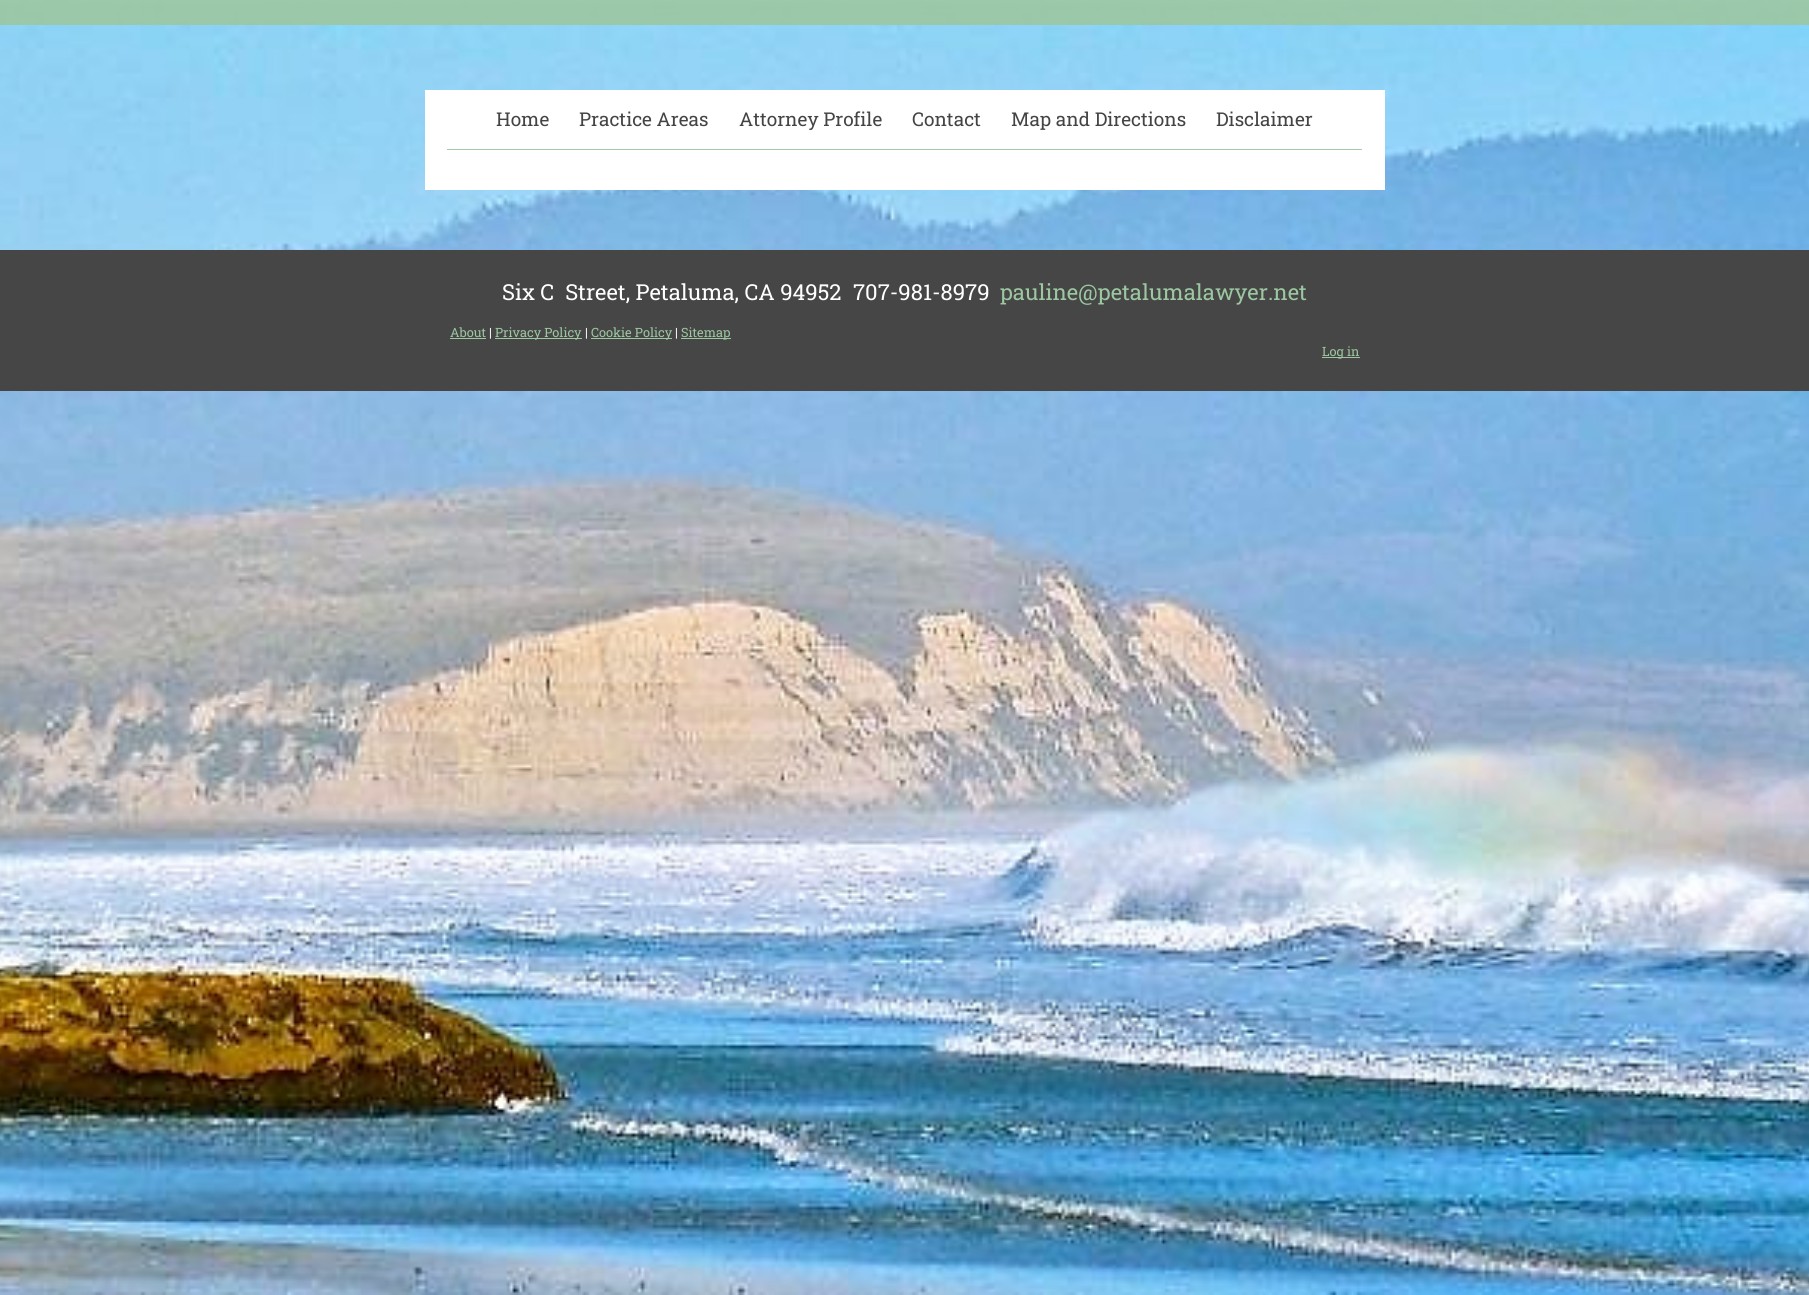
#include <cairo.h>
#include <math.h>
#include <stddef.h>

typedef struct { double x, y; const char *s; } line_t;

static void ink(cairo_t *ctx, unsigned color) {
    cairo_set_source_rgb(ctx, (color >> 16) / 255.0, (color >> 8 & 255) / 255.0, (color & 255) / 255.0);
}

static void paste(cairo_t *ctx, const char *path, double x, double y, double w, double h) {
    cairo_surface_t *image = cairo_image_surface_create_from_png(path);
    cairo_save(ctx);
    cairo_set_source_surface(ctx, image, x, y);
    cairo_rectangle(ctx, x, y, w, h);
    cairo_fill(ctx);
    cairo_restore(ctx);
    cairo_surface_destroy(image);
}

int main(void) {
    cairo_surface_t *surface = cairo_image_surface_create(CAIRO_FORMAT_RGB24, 1809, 1295);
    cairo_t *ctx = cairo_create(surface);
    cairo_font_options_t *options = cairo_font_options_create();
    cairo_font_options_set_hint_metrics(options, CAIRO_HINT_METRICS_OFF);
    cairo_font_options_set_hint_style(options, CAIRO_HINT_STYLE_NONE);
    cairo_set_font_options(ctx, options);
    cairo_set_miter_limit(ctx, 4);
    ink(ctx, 0xFFFFFF);
    cairo_paint(ctx);
    paste(ctx, "media/1.png", 0, 0, 1809, 1295);
    cairo_set_source_rgba(ctx, 0.612, 0.78, 0.631, 0.9);
    cairo_rectangle(ctx, 0, 0, 1809, 25);
    cairo_fill(ctx);
    ink(ctx, 0xFFFFFF);
    cairo_rectangle(ctx, 425, 90, 960, 100);
    cairo_fill(ctx);
    ink(ctx, 0xA6CDAA);
    cairo_rectangle(ctx, 447, 149, 915, 1);
    cairo_fill(ctx);
    cairo_select_font_face(ctx, "Roboto Slab", CAIRO_FONT_SLANT_NORMAL, CAIRO_FONT_WEIGHT_NORMAL);
    cairo_set_font_size(ctx, 19);
    ink(ctx, 0x444444);
    {
        static const line_t items[] = {
            {496, 126, "Home"},
            {579, 126, "Practice Areas"},
            {739, 126, "Attorney Profile"},
            {912, 126, "Contact"},
            {1011, 126, "Map and Directions"},
            {1216, 126, "Disclaimer"},
        };
        for (size_t i = 0; i < sizeof items / sizeof *items; i++) {
            cairo_move_to(ctx, items[i].x, items[i].y);
            cairo_show_text(ctx, items[i].s);
        }
    }
    ink(ctx, 0x464646);
    cairo_rectangle(ctx, 0, 250, 1809, 141);
    cairo_fill(ctx);
    cairo_set_font_size(ctx, 22);
    ink(ctx, 0xFFFFFF);
    cairo_move_to(ctx, 502, 300);
    cairo_show_text(ctx, "Six C  Street, Petaluma, CA 94952");
    cairo_move_to(ctx, 853, 300);
    cairo_show_text(ctx, "707-981-8979");
    ink(ctx, 0x9CC7A1);
    cairo_move_to(ctx, 1000, 300);
    cairo_show_text(ctx, "pauline@petalumalawyer.net");
    cairo_set_font_size(ctx, 12.75);
    cairo_move_to(ctx, 450, 337);
    cairo_show_text(ctx, "About");
    cairo_rectangle(ctx, 450, 338, 36, 1);
    cairo_fill(ctx);
    ink(ctx, 0xFFFFFF);
    cairo_move_to(ctx, 489, 337);
    cairo_show_text(ctx, "|");
    ink(ctx, 0x9CC7A1);
    cairo_rectangle(ctx, 495, 338, 87, 1);
    cairo_fill(ctx);
    cairo_move_to(ctx, 495, 337);
    cairo_show_text(ctx, "Privacy Policy");
    ink(ctx, 0xFFFFFF);
    cairo_move_to(ctx, 585, 337);
    cairo_show_text(ctx, "|");
    ink(ctx, 0x9CC7A1);
    cairo_rectangle(ctx, 591, 338, 81, 1);
    cairo_fill(ctx);
    cairo_move_to(ctx, 591, 337);
    cairo_show_text(ctx, "Cookie Policy");
    ink(ctx, 0xFFFFFF);
    cairo_move_to(ctx, 675, 337);
    cairo_show_text(ctx, "|");
    ink(ctx, 0x9CC7A1);
    cairo_rectangle(ctx, 681, 338, 50, 1);
    cairo_fill(ctx);
    cairo_move_to(ctx, 681, 337);
    cairo_show_text(ctx, "Sitemap");
    cairo_rectangle(ctx, 1322, 357, 38, 1);
    cairo_fill(ctx);
    cairo_move_to(ctx, 1322, 356);
    cairo_show_text(ctx, "Log in");
    cairo_surface_write_to_png(surface, "image.png");
    cairo_font_options_destroy(options);
    cairo_destroy(ctx);
    cairo_surface_destroy(surface);
    return 0;
}
